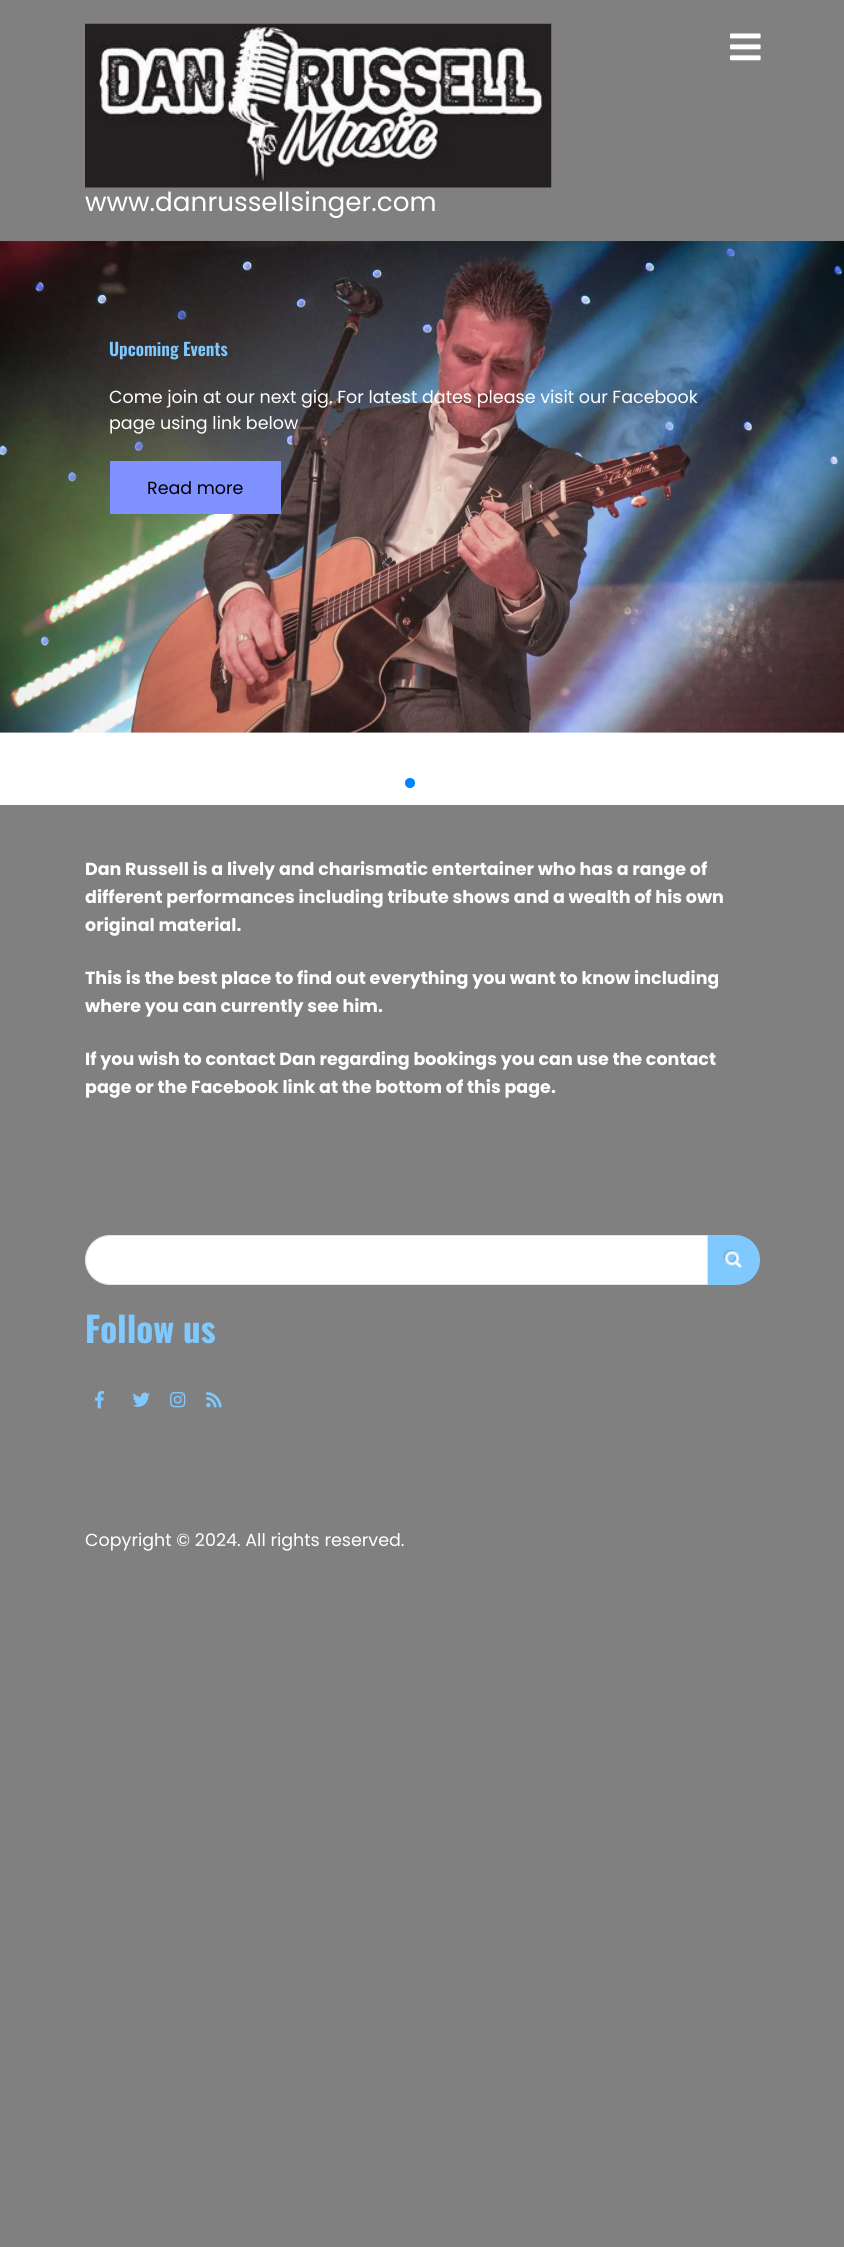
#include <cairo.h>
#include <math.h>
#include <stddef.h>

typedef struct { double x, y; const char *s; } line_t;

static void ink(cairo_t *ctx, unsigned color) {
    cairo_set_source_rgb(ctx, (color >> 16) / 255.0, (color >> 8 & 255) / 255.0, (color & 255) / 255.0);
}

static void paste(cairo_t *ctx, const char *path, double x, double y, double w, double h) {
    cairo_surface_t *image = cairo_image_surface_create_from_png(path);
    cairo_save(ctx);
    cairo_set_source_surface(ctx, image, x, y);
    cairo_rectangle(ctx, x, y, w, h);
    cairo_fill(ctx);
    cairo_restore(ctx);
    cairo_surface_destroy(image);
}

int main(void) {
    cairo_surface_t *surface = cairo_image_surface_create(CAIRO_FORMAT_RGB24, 844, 2247);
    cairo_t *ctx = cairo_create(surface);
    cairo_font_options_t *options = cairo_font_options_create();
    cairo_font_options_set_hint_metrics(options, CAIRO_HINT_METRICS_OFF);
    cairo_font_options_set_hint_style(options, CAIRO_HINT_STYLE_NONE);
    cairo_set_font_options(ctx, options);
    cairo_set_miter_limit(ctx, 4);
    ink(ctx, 0x808080);
    cairo_paint(ctx);
    paste(ctx, "media/1.png", 730, 33, 31, 28);
    paste(ctx, "media/2.png", 85, 23, 467, 165);
    cairo_select_font_face(ctx, "Poppins", CAIRO_FONT_SLANT_NORMAL, CAIRO_FONT_WEIGHT_NORMAL);
    cairo_set_font_size(ctx, 26.25);
    ink(ctx, 0xFFFFFF);
    cairo_move_to(ctx, 85, 211);
    cairo_show_text(ctx, "www.danrussellsinger.com");
    cairo_rectangle(ctx, 0, 732, 844, 73);
    cairo_fill(ctx);
    paste(ctx, "media/3.png", 0, 241, 844, 492);
    cairo_select_font_face(ctx, "Oswald SemiBold", CAIRO_FONT_SLANT_NORMAL, CAIRO_FONT_WEIGHT_NORMAL);
    cairo_set_font_size(ctx, 17.5);
    ink(ctx, 0x7FC9FF);
    cairo_move_to(ctx, 109, 356);
    cairo_show_text(ctx, "Upcoming Events");
    cairo_select_font_face(ctx, "Poppins", CAIRO_FONT_SLANT_NORMAL, CAIRO_FONT_WEIGHT_NORMAL);
    ink(ctx, 0xFFFFFF);
    cairo_move_to(ctx, 109, 403);
    cairo_show_text(ctx, "Come join at our next gig. For latest dates please visit our Facebook");
    cairo_move_to(ctx, 109, 429);
    cairo_show_text(ctx, "page using link below");
    ink(ctx, 0x7F92FF);
    cairo_rectangle(ctx, 110, 461, 171, 53);
    cairo_fill(ctx);
    ink(ctx, 0x000000);
    cairo_move_to(ctx, 147, 494);
    cairo_show_text(ctx, "Read more");
    ink(ctx, 0x0084FF);
    cairo_new_path(ctx);
    cairo_arc(ctx, 410, 783, 5, 0, 2 * M_PI);
    cairo_fill(ctx);
    cairo_select_font_face(ctx, "Poppins", CAIRO_FONT_SLANT_NORMAL, CAIRO_FONT_WEIGHT_BOLD);
    ink(ctx, 0xFFFFFF);
    {
        static const line_t items[] = {
            {85, 875, "Dan Russell is a lively and charismatic entertainer who has a range of"},
            {85, 903, "different performances including tribute shows and a wealth of his own"},
            {85, 931, "original material."},
            {85, 984, "This is the best place to find out everything you want to know including"},
            {85, 1012, "where you can currently see him."},
            {85, 1065, "If you wish to contact Dan regarding bookings you can use the contact"},
            {85, 1093, "page or the Facebook link at the bottom of this page."},
        };
        for (size_t i = 0; i < sizeof items / sizeof *items; i++) {
            cairo_move_to(ctx, items[i].x, items[i].y);
            cairo_show_text(ctx, items[i].s);
        }
    }
    cairo_new_path(ctx);
    cairo_move_to(ctx, 110, 1235.5);
    cairo_line_to(ctx, 707.5, 1235.5);
    cairo_line_to(ctx, 707.5, 1284.5);
    cairo_line_to(ctx, 110, 1284.5);
    cairo_curve_to(ctx, 96.5, 1284.5, 85.5, 1273.5, 85.5, 1260);
    cairo_curve_to(ctx, 85.5, 1246.5, 96.5, 1235.5, 110, 1235.5);
    cairo_close_path(ctx);
    cairo_fill_preserve(ctx);
    ink(ctx, 0xE3E3E3);
    cairo_set_line_width(ctx, 1);
    cairo_stroke(ctx);
    ink(ctx, 0x7FC9FF);
    cairo_new_path(ctx);
    cairo_move_to(ctx, 708, 1235);
    cairo_line_to(ctx, 735, 1235);
    cairo_curve_to(ctx, 749, 1235, 760, 1246, 760, 1260);
    cairo_curve_to(ctx, 760, 1274, 749, 1285, 735, 1285);
    cairo_line_to(ctx, 708, 1285);
    cairo_close_path(ctx);
    cairo_fill(ctx);
    paste(ctx, "media/4.png", 723, 1250, 19, 18);
    cairo_select_font_face(ctx, "Oswald", CAIRO_FONT_SLANT_NORMAL, CAIRO_FONT_WEIGHT_BOLD);
    cairo_set_font_size(ctx, 35);
    cairo_move_to(ctx, 85, 1343);
    cairo_show_text(ctx, "Follow us");
    paste(ctx, "media/5.png", 95, 1390, 9, 19);
    paste(ctx, "media/6.png", 132, 1392, 18, 15);
    paste(ctx, "media/7.png", 170, 1392, 16, 16);
    paste(ctx, "media/8.png", 206, 1392, 16, 16);
    cairo_select_font_face(ctx, "Poppins", CAIRO_FONT_SLANT_NORMAL, CAIRO_FONT_WEIGHT_NORMAL);
    cairo_set_font_size(ctx, 17.5);
    ink(ctx, 0xFFFFFF);
    cairo_move_to(ctx, 85, 1546);
    cairo_show_text(ctx, "Copyright © 2024. All rights reserved.");
    cairo_surface_write_to_png(surface, "image.png");
    cairo_font_options_destroy(options);
    cairo_destroy(ctx);
    cairo_surface_destroy(surface);
    return 0;
}
